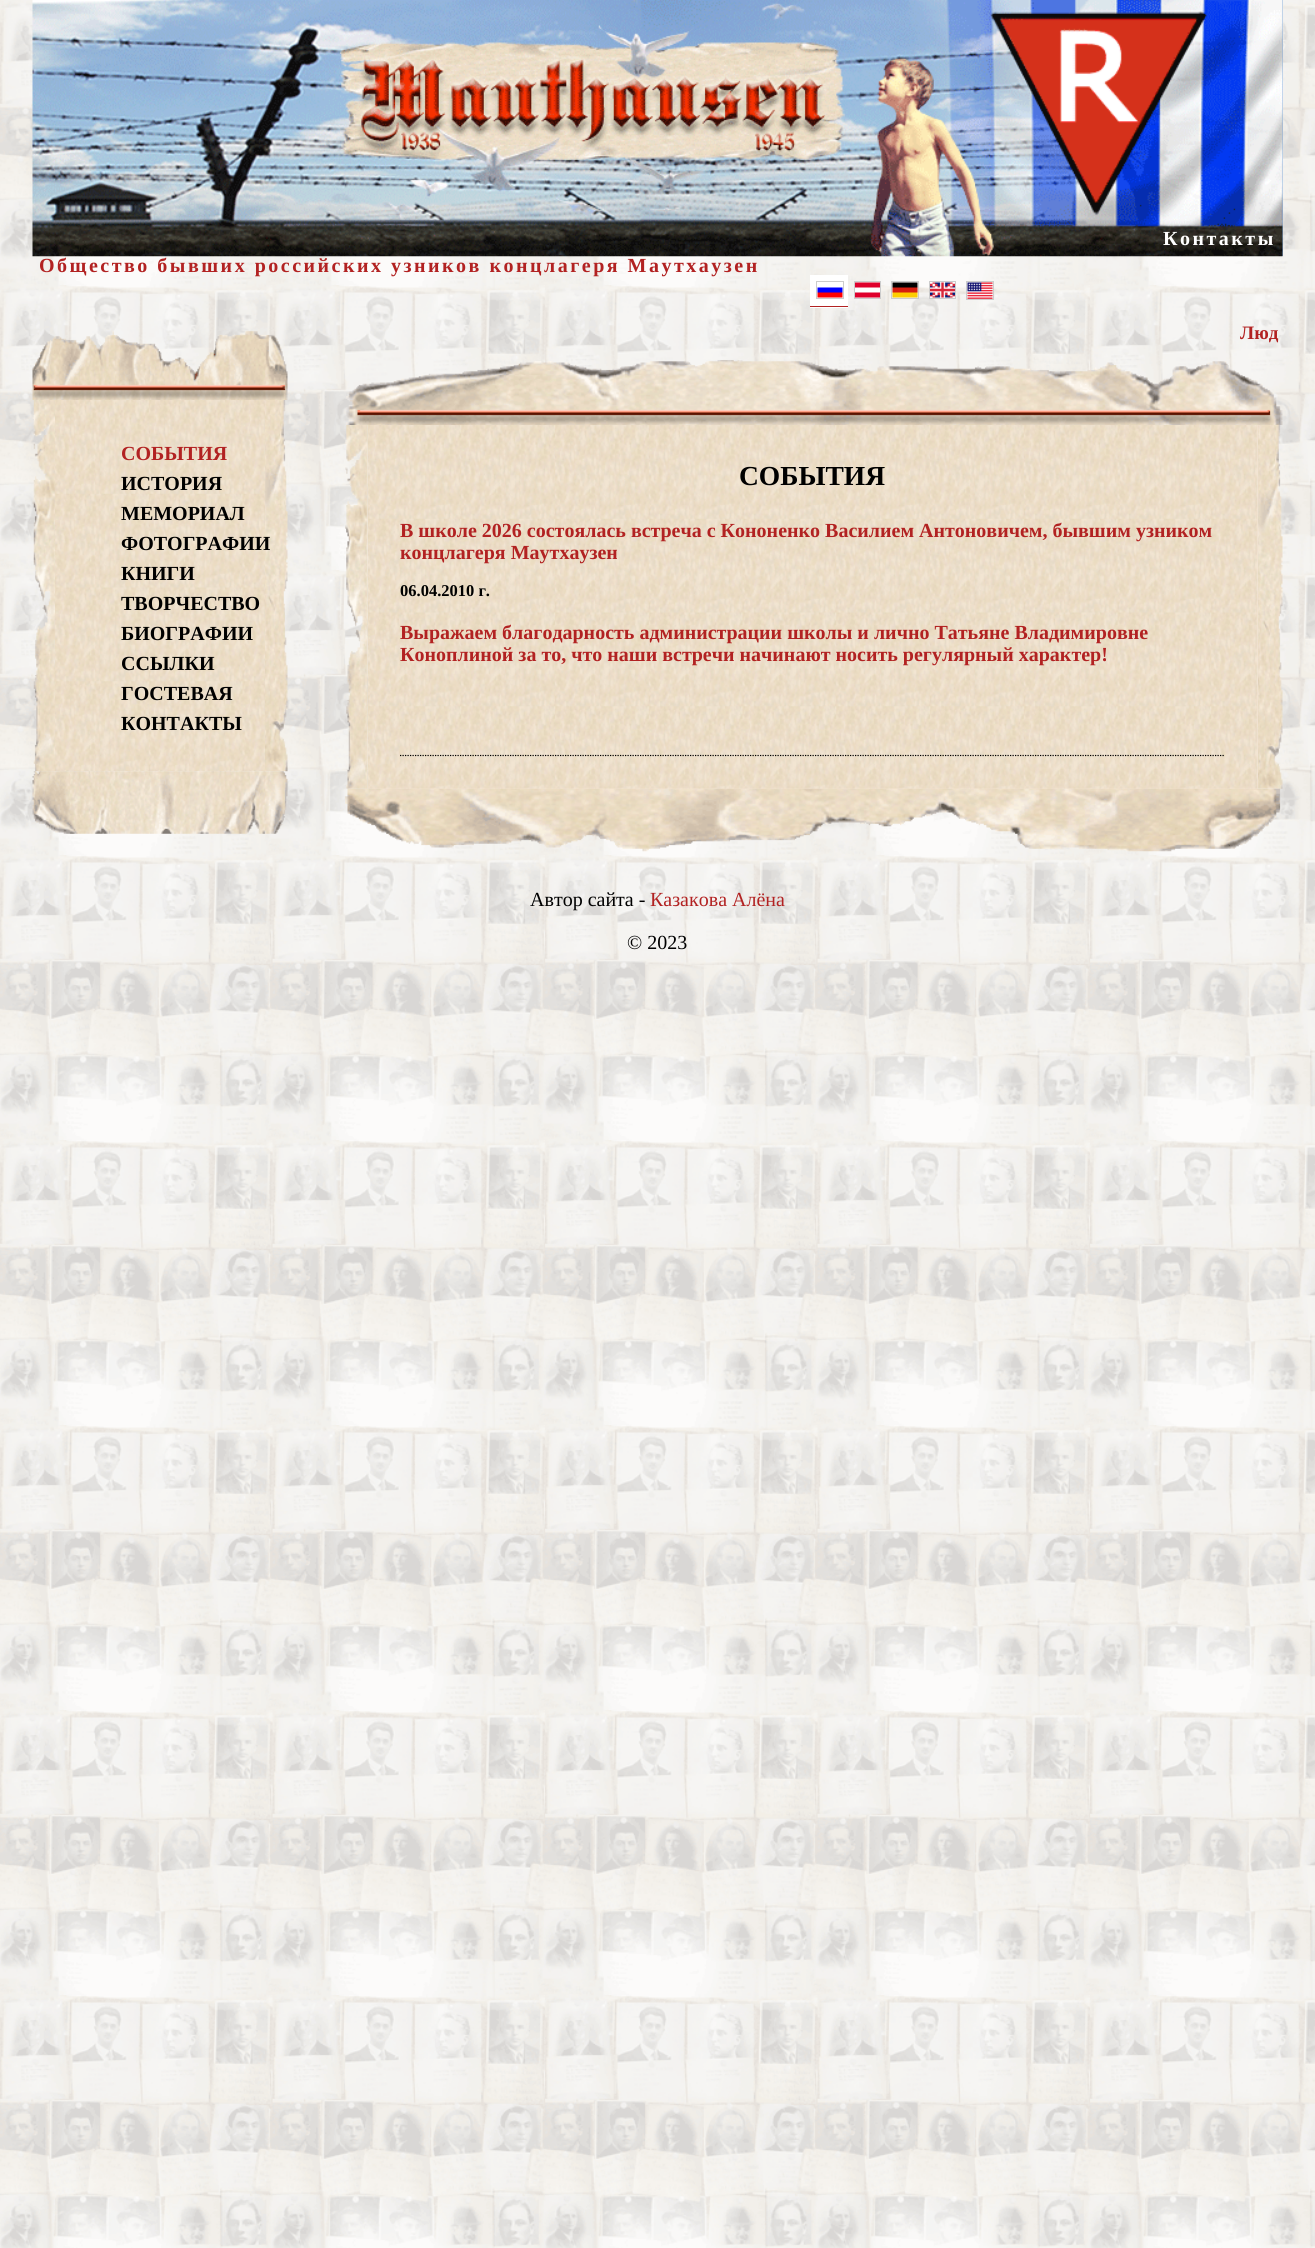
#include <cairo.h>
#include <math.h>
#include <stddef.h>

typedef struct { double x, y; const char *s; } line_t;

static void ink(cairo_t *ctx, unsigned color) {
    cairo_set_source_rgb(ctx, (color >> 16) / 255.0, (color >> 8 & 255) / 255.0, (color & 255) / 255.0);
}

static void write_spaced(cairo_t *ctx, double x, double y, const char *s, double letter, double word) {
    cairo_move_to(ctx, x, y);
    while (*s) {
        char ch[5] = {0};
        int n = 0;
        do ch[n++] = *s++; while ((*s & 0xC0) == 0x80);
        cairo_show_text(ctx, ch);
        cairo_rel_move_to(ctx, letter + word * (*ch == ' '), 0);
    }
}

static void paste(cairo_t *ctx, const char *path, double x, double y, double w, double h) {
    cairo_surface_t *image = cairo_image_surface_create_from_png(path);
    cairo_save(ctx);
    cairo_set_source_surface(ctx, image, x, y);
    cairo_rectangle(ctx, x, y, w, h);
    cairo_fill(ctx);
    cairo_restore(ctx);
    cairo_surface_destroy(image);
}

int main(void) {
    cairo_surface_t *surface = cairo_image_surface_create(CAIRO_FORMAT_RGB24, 1315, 2248);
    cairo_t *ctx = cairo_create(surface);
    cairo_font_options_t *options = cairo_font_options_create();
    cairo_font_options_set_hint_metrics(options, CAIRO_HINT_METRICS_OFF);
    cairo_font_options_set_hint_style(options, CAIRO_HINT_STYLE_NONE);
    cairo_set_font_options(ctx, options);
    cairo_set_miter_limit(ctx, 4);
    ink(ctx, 0xFFFFFF);
    cairo_paint(ctx);
    paste(ctx, "media/1.png", 0, 0, 1315, 2248);
    ink(ctx, 0x8BAED8);
    cairo_rectangle(ctx, 1282, 0, 1, 256);
    cairo_fill(ctx);
    paste(ctx, "media/2.png", 32, 0, 1251, 257);
    cairo_select_font_face(ctx, "Liberation Serif", CAIRO_FONT_SLANT_NORMAL, CAIRO_FONT_WEIGHT_BOLD);
    cairo_set_font_size(ctx, 20);
    ink(ctx, 0xFFFFFF);
    write_spaced(ctx, 1163, 245, "Контакты", 2.5, 0);
    ink(ctx, 0xB22222);
    write_spaced(ctx, 39, 272, "Общество бывших российских узников концлагеря Маутхаузен", 2.5, 0);
    ink(ctx, 0xFFFFFF);
    cairo_rectangle(ctx, 810, 275, 38, 33);
    cairo_fill(ctx);
    ink(ctx, 0xB22222);
    cairo_rectangle(ctx, 810, 306, 38, 1);
    cairo_fill(ctx);
    cairo_rectangle(ctx, 816.5, 281.5, 27, 17);
    ink(ctx, 0xCCCCCC);
    cairo_set_line_width(ctx, 1);
    cairo_stroke(ctx);
    paste(ctx, "media/3.png", 817, 287, 26, 11);
    cairo_rectangle(ctx, 854.5, 281.5, 26, 17);
    cairo_stroke(ctx);
    paste(ctx, "media/4.png", 855, 282, 25, 16);
    cairo_rectangle(ctx, 891.5, 281.5, 27, 17);
    cairo_stroke(ctx);
    paste(ctx, "media/5.png", 892, 282, 26, 16);
    cairo_rectangle(ctx, 929.5, 281.5, 26, 17);
    cairo_stroke(ctx);
    paste(ctx, "media/6.png", 930, 282, 25, 16);
    cairo_rectangle(ctx, 966.5, 281.5, 27, 18);
    cairo_stroke(ctx);
    paste(ctx, "media/7.png", 967, 282, 26, 17);
    cairo_set_font_size(ctx, 19);
    ink(ctx, 0xB22222);
    cairo_move_to(ctx, 1240, 339);
    cairo_show_text(ctx, "Люд");
    paste(ctx, "media/8.png", 32, 331, 256, 69);
    paste(ctx, "media/9.png", 32, 400, 23, 372);
    paste(ctx, "media/10.png", 262, 400, 26, 372);
    paste(ctx, "media/11.png", 55, 400, 210, 372);
    cairo_set_font_size(ctx, 20);
    cairo_move_to(ctx, 121, 460);
    cairo_show_text(ctx, "СОБЫТИЯ");
    ink(ctx, 0x000000);
    {
        static const line_t items[] = {
            {121, 490, "ИСТОРИЯ"},
            {121, 520, "МЕМОРИАЛ"},
            {121, 550, "ФОТОГРАФИИ"},
            {121, 580, "КНИГИ"},
            {121, 610, "ТВОРЧЕСТВО"},
            {121, 640, "БИОГРАФИИ"},
            {121, 670, "ССЫЛКИ"},
            {121, 700, "ГОСТЕВАЯ"},
            {121, 730, "КОНТАКТЫ"},
        };
        for (size_t i = 0; i < sizeof items / sizeof *items; i++) {
            cairo_move_to(ctx, items[i].x, items[i].y);
            cairo_show_text(ctx, items[i].s);
        }
    }
    paste(ctx, "media/12.png", 32, 771, 256, 63);
    paste(ctx, "media/13.png", 346, 360, 937, 65);
    paste(ctx, "media/14.png", 345, 425, 23, 364);
    paste(ctx, "media/15.png", 1258, 425, 25, 364);
    ink(ctx, 0xF5E7D8);
    cairo_rectangle(ctx, 368, 425, 890, 364);
    cairo_fill(ctx);
    paste(ctx, "media/16.png", 367, 425, 891, 364);
    cairo_set_font_size(ctx, 27.5);
    ink(ctx, 0x000000);
    cairo_move_to(ctx, 739, 485);
    cairo_show_text(ctx, "СОБЫТИЯ");
    cairo_new_path(ctx);
    cairo_move_to(ctx, 400, 755.5);
    cairo_line_to(ctx, 1225, 755.5);
    cairo_set_line_width(ctx, 1.2);
    cairo_set_dash(ctx, (double[]){1.25, 1.25}, 2, 0);
    cairo_stroke(ctx);
    cairo_set_font_size(ctx, 20);
    ink(ctx, 0xB22222);
    cairo_move_to(ctx, 400, 537);
    cairo_show_text(ctx, "В школе 2026 состоялась встреча с Кононенко Василием Антоновичем, бывшим узником");
    cairo_move_to(ctx, 400, 559);
    cairo_show_text(ctx, "концлагеря Маутхаузен");
    cairo_set_font_size(ctx, 16.5);
    ink(ctx, 0x000000);
    cairo_move_to(ctx, 400, 596);
    cairo_show_text(ctx, "06.04.2010 г.");
    cairo_set_font_size(ctx, 20);
    ink(ctx, 0xB22222);
    cairo_move_to(ctx, 400, 639);
    cairo_show_text(ctx, "Выражаем благодарность администрации школы и лично Татьяне Владимировне");
    cairo_move_to(ctx, 400, 661);
    cairo_show_text(ctx, "Коноплиной за то, что наши встречи начинают носить регулярный характер!");
    paste(ctx, "media/17.png", 345, 788, 936, 64);
    cairo_select_font_face(ctx, "Liberation Serif", CAIRO_FONT_SLANT_NORMAL, CAIRO_FONT_WEIGHT_NORMAL);
    ink(ctx, 0x000000);
    cairo_move_to(ctx, 530, 906);
    cairo_show_text(ctx, "Автор сайта -");
    ink(ctx, 0xB22222);
    cairo_move_to(ctx, 650, 906);
    cairo_show_text(ctx, "Казакова Алёна");
    ink(ctx, 0x000000);
    cairo_move_to(ctx, 627, 949);
    cairo_show_text(ctx, "© 2023");
    cairo_surface_write_to_png(surface, "image.png");
    cairo_font_options_destroy(options);
    cairo_destroy(ctx);
    cairo_surface_destroy(surface);
    return 0;
}
